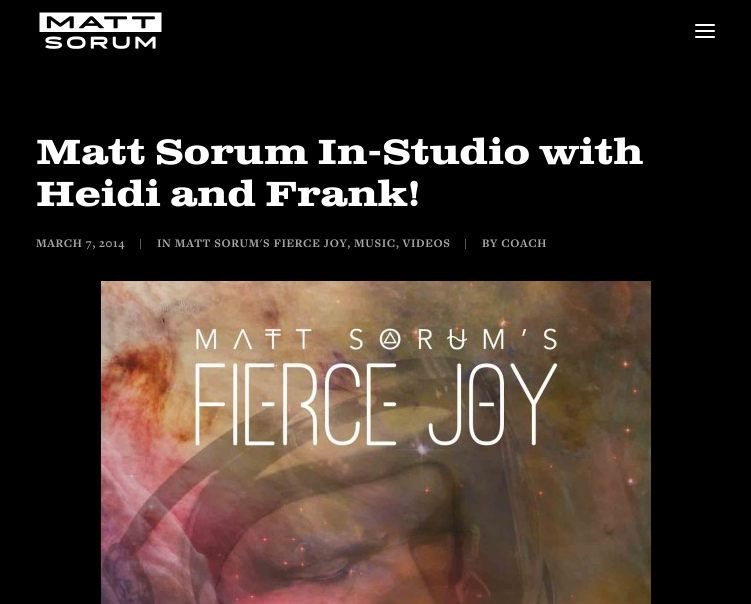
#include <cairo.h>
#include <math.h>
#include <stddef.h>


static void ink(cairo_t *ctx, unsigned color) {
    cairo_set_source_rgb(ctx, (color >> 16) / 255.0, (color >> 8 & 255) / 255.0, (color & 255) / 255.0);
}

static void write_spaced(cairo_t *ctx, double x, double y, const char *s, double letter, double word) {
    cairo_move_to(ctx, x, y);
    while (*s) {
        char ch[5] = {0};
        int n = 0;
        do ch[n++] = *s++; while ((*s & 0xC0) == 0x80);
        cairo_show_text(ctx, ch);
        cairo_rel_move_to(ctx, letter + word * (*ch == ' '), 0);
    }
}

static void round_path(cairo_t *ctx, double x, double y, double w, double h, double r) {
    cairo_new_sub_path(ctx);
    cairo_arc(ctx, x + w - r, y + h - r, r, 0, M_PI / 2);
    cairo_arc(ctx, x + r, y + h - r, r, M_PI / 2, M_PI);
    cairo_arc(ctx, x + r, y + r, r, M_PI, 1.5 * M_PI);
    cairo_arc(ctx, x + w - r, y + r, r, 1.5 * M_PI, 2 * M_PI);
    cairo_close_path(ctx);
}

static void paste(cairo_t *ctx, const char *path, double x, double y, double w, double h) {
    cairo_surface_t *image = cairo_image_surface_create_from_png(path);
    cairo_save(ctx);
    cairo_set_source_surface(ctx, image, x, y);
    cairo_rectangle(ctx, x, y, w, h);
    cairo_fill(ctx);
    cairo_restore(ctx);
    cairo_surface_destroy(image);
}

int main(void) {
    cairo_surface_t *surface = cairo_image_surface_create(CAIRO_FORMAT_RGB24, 751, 604);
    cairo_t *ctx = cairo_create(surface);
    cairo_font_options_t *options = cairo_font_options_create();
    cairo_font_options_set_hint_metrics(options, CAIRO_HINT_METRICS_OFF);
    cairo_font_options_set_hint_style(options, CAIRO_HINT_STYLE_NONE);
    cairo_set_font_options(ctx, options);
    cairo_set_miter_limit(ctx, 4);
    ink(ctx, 0x000000);
    cairo_paint(ctx);
    paste(ctx, "media/1.png", 39, 12, 123, 37);
    ink(ctx, 0xFFFFFF);
    round_path(ctx, 695, 30, 20, 2, 1);
    cairo_fill(ctx);
    round_path(ctx, 695, 24, 20, 2, 1);
    cairo_fill(ctx);
    round_path(ctx, 695, 36, 20, 2, 1);
    cairo_fill(ctx);
    cairo_select_font_face(ctx, "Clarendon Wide", CAIRO_FONT_SLANT_NORMAL, CAIRO_FONT_WEIGHT_BOLD);
    cairo_set_font_size(ctx, 35);
    cairo_move_to(ctx, 36, 164);
    cairo_show_text(ctx, "Matt Sorum In-Studio with");
    cairo_move_to(ctx, 36, 206);
    cairo_show_text(ctx, "Heidi and Frank!");
    cairo_select_font_face(ctx, "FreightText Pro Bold", CAIRO_FONT_SLANT_NORMAL, CAIRO_FONT_WEIGHT_BOLD);
    cairo_set_font_size(ctx, 12);
    ink(ctx, 0xA6A6A6);
    write_spaced(ctx, 36, 247, "MARCH 7, 2014", 0.6, 0);
    cairo_select_font_face(ctx, "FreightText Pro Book", CAIRO_FONT_SLANT_NORMAL, CAIRO_FONT_WEIGHT_NORMAL);
    write_spaced(ctx, 139, 247, "|", 0.6, 0);
    cairo_select_font_face(ctx, "FreightText Pro Bold", CAIRO_FONT_SLANT_NORMAL, CAIRO_FONT_WEIGHT_BOLD);
    write_spaced(ctx, 157, 247, "IN MATT SORUM'S FIERCE JOY, MUSIC, VIDEOS", 0.6, 0);
    cairo_select_font_face(ctx, "FreightText Pro Book", CAIRO_FONT_SLANT_NORMAL, CAIRO_FONT_WEIGHT_NORMAL);
    write_spaced(ctx, 464, 247, "|", 0.6, 0);
    cairo_select_font_face(ctx, "FreightText Pro Bold", CAIRO_FONT_SLANT_NORMAL, CAIRO_FONT_WEIGHT_BOLD);
    write_spaced(ctx, 482, 247, "BY COACH", 0.6, 0);
    paste(ctx, "media/2.png", 101, 281, 550, 323);
    cairo_surface_write_to_png(surface, "image.png");
    cairo_font_options_destroy(options);
    cairo_destroy(ctx);
    cairo_surface_destroy(surface);
    return 0;
}
